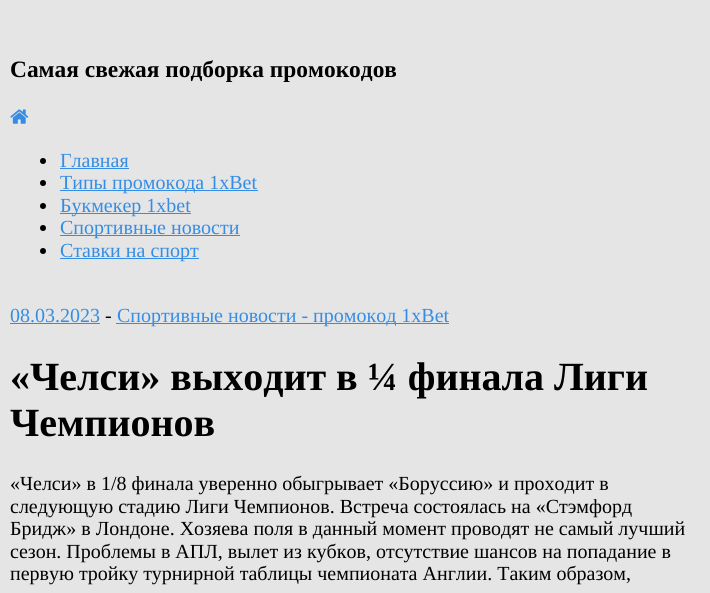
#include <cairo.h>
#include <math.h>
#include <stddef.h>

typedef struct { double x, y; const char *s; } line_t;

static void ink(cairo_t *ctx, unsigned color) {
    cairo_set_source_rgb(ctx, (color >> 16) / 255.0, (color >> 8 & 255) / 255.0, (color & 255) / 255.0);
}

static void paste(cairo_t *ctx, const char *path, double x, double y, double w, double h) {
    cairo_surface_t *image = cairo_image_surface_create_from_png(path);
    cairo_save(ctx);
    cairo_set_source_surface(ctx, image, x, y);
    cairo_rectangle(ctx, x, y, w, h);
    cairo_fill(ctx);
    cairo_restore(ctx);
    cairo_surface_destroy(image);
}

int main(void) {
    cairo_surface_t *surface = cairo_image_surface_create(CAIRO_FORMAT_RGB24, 710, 593);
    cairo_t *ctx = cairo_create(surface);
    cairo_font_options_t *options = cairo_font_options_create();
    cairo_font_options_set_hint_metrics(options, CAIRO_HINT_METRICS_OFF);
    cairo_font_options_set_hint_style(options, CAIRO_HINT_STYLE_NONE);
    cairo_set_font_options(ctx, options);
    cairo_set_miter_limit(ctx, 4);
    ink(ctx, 0xE5E5E5);
    cairo_paint(ctx);
    cairo_select_font_face(ctx, "Liberation Serif", CAIRO_FONT_SLANT_NORMAL, CAIRO_FONT_WEIGHT_BOLD);
    cairo_set_font_size(ctx, 23.4);
    ink(ctx, 0x000000);
    cairo_move_to(ctx, 10, 77);
    cairo_show_text(ctx, "Самая свежая подборка промокодов");
    paste(ctx, "media/1.png", 10, 109, 19, 15);
    cairo_arc(ctx, 43, 161, 3, 0, 2 * M_PI);
    cairo_fill(ctx);
    cairo_select_font_face(ctx, "Liberation Serif", CAIRO_FONT_SLANT_NORMAL, CAIRO_FONT_WEIGHT_NORMAL);
    cairo_set_font_size(ctx, 20);
    ink(ctx, 0x348DE5);
    cairo_move_to(ctx, 60, 167);
    cairo_show_text(ctx, "Главная");
    cairo_rectangle(ctx, 60, 168, 69, 1);
    cairo_fill(ctx);
    ink(ctx, 0x000000);
    cairo_arc(ctx, 43, 183, 3, 0, 2 * M_PI);
    cairo_fill(ctx);
    ink(ctx, 0x348DE5);
    cairo_rectangle(ctx, 60, 190, 198, 1);
    cairo_fill(ctx);
    cairo_move_to(ctx, 60, 189);
    cairo_show_text(ctx, "Типы промокода 1xBet");
    ink(ctx, 0x000000);
    cairo_new_path(ctx);
    cairo_arc(ctx, 43, 206, 3, 0, 2 * M_PI);
    cairo_fill(ctx);
    ink(ctx, 0x348DE5);
    cairo_rectangle(ctx, 60, 213, 131, 1);
    cairo_fill(ctx);
    cairo_move_to(ctx, 60, 212);
    cairo_show_text(ctx, "Букмекер 1xbet");
    ink(ctx, 0x000000);
    cairo_new_path(ctx);
    cairo_arc(ctx, 43, 228, 3, 0, 2 * M_PI);
    cairo_fill(ctx);
    ink(ctx, 0x348DE5);
    cairo_rectangle(ctx, 60, 235, 180, 1);
    cairo_fill(ctx);
    cairo_move_to(ctx, 60, 234);
    cairo_show_text(ctx, "Спортивные новости");
    ink(ctx, 0x000000);
    cairo_new_path(ctx);
    cairo_arc(ctx, 43, 251, 3, 0, 2 * M_PI);
    cairo_fill(ctx);
    ink(ctx, 0x348DE5);
    cairo_rectangle(ctx, 60, 258, 139, 1);
    cairo_fill(ctx);
    cairo_move_to(ctx, 60, 257);
    cairo_show_text(ctx, "Ставки на спорт");
    cairo_move_to(ctx, 10, 322);
    cairo_show_text(ctx, "08.03.2023");
    cairo_rectangle(ctx, 10, 323, 90, 1);
    cairo_fill(ctx);
    ink(ctx, 0x000000);
    cairo_move_to(ctx, 105, 322);
    cairo_show_text(ctx, "-");
    ink(ctx, 0x348DE5);
    cairo_rectangle(ctx, 116, 323, 333, 1);
    cairo_fill(ctx);
    cairo_move_to(ctx, 117, 322);
    cairo_show_text(ctx, "Спортивные новости - промокод 1xBet");
    cairo_select_font_face(ctx, "Liberation Serif", CAIRO_FONT_SLANT_NORMAL, CAIRO_FONT_WEIGHT_BOLD);
    cairo_set_font_size(ctx, 40);
    ink(ctx, 0x000000);
    cairo_move_to(ctx, 10, 390);
    cairo_show_text(ctx, "«Челси» выходит в ¼ финала Лиги");
    cairo_move_to(ctx, 10, 436);
    cairo_show_text(ctx, "Чемпионов");
    cairo_select_font_face(ctx, "Liberation Serif", CAIRO_FONT_SLANT_NORMAL, CAIRO_FONT_WEIGHT_NORMAL);
    cairo_set_font_size(ctx, 20);
    {
        static const line_t items[] = {
            {10, 490, "«Челси» в 1/8 финала уверенно обыгрывает «Боруссию» и проходит в"},
            {10, 513, "следующую стадию Лиги Чемпионов. Встреча состоялась на «Стэмфорд"},
            {10, 535, "Бридж» в Лондоне. Хозяева поля в данный момент проводят не самый лучший"},
            {10, 558, "сезон. Проблемы в АПЛ, вылет из кубков, отсутствие шансов на попадание в"},
            {10, 580, "первую тройку турнирной таблицы чемпионата Англии. Таким образом,"},
        };
        for (size_t i = 0; i < sizeof items / sizeof *items; i++) {
            cairo_move_to(ctx, items[i].x, items[i].y);
            cairo_show_text(ctx, items[i].s);
        }
    }
    cairo_surface_write_to_png(surface, "image.png");
    cairo_font_options_destroy(options);
    cairo_destroy(ctx);
    cairo_surface_destroy(surface);
    return 0;
}
